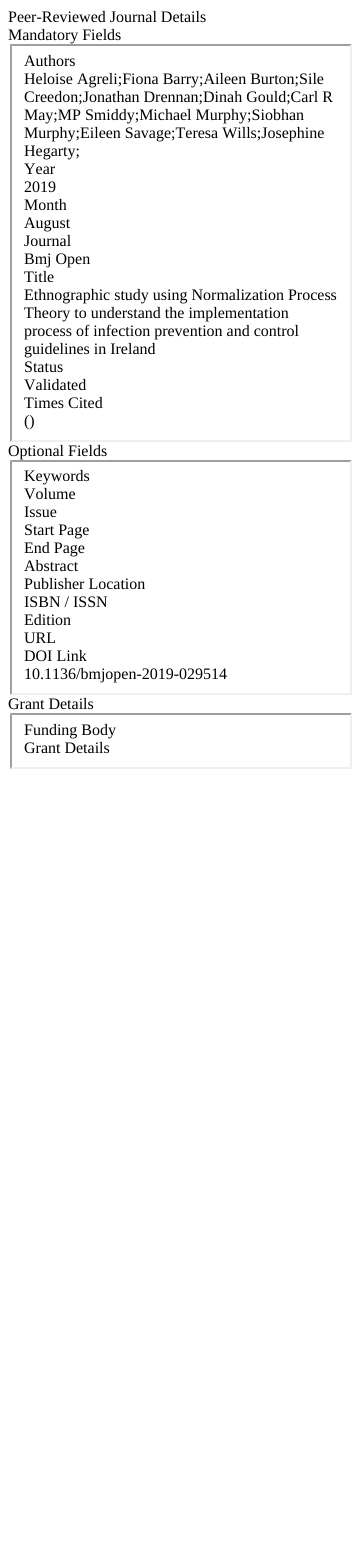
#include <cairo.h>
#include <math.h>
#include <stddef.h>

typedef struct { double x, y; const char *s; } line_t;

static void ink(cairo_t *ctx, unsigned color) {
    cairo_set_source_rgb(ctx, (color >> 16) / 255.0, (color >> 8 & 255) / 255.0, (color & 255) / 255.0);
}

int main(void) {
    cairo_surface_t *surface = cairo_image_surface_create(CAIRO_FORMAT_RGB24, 362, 1541);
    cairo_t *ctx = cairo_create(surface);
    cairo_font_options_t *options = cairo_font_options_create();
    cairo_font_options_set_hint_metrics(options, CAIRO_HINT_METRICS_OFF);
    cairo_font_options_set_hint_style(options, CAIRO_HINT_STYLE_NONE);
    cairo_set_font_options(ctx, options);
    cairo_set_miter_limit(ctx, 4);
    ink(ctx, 0xFFFFFF);
    cairo_paint(ctx);
    cairo_select_font_face(ctx, "Liberation Serif", CAIRO_FONT_SLANT_NORMAL, CAIRO_FONT_WEIGHT_NORMAL);
    cairo_set_font_size(ctx, 16);
    ink(ctx, 0x000000);
    cairo_move_to(ctx, 8, 22);
    cairo_show_text(ctx, "Peer-Reviewed Journal Details");
    cairo_move_to(ctx, 8, 40);
    cairo_show_text(ctx, "Mandatory Fields");
    ink(ctx, 0x9F9F9F);
    cairo_new_path(ctx);
    cairo_move_to(ctx, 10, 44);
    cairo_line_to(ctx, 352, 44);
    cairo_line_to(ctx, 350, 46);
    cairo_line_to(ctx, 12, 46);
    cairo_close_path(ctx);
    cairo_fill(ctx);
    ink(ctx, 0xEFEFEF);
    cairo_new_path(ctx);
    cairo_move_to(ctx, 352, 44);
    cairo_line_to(ctx, 352, 442);
    cairo_line_to(ctx, 350, 440);
    cairo_line_to(ctx, 350, 46);
    cairo_close_path(ctx);
    cairo_fill(ctx);
    cairo_new_path(ctx);
    cairo_move_to(ctx, 352, 442);
    cairo_line_to(ctx, 10, 442);
    cairo_line_to(ctx, 12, 440);
    cairo_line_to(ctx, 350, 440);
    cairo_close_path(ctx);
    cairo_fill(ctx);
    ink(ctx, 0x9F9F9F);
    cairo_new_path(ctx);
    cairo_move_to(ctx, 10, 442);
    cairo_line_to(ctx, 10, 44);
    cairo_line_to(ctx, 12, 46);
    cairo_line_to(ctx, 12, 440);
    cairo_close_path(ctx);
    cairo_fill(ctx);
    ink(ctx, 0x000000);
    {
        static const line_t items[] = {
            {24, 66, "Authors"},
            {24, 84, "Heloise Agreli;Fiona Barry;Aileen Burton;Sile"},
            {24, 102, "Creedon;Jonathan Drennan;Dinah Gould;Carl R"},
            {24, 120, "May;MP Smiddy;Michael Murphy;Siobhan"},
            {24, 138, "Murphy;Eileen Savage;Teresa Wills;Josephine"},
            {24, 156, "Hegarty;"},
            {24, 174, "Year"},
            {24, 192, "2019"},
            {24, 210, "Month"},
            {24, 228, "August"},
            {24, 246, "Journal"},
            {24, 264, "Bmj Open"},
            {24, 282, "Title"},
            {24, 300, "Ethnographic study using Normalization Process"},
            {24, 318, "Theory to understand the implementation"},
            {24, 336, "process of infection prevention and control"},
            {24, 354, "guidelines in Ireland"},
            {24, 372, "Status"},
            {24, 390, "Validated"},
            {24, 408, "Times Cited"},
            {24, 426, "()"},
            {8, 456, "Optional Fields"},
        };
        for (size_t i = 0; i < sizeof items / sizeof *items; i++) {
            cairo_move_to(ctx, items[i].x, items[i].y);
            cairo_show_text(ctx, items[i].s);
        }
    }
    ink(ctx, 0x9F9F9F);
    cairo_new_path(ctx);
    cairo_move_to(ctx, 10, 460);
    cairo_line_to(ctx, 352, 460);
    cairo_line_to(ctx, 350, 462);
    cairo_line_to(ctx, 12, 462);
    cairo_close_path(ctx);
    cairo_fill(ctx);
    ink(ctx, 0xEFEFEF);
    cairo_new_path(ctx);
    cairo_move_to(ctx, 352, 460);
    cairo_line_to(ctx, 352, 695);
    cairo_line_to(ctx, 350, 693);
    cairo_line_to(ctx, 350, 462);
    cairo_close_path(ctx);
    cairo_fill(ctx);
    cairo_new_path(ctx);
    cairo_move_to(ctx, 352, 695);
    cairo_line_to(ctx, 10, 695);
    cairo_line_to(ctx, 12, 693);
    cairo_line_to(ctx, 350, 693);
    cairo_close_path(ctx);
    cairo_fill(ctx);
    ink(ctx, 0x9F9F9F);
    cairo_new_path(ctx);
    cairo_move_to(ctx, 10, 695);
    cairo_line_to(ctx, 10, 460);
    cairo_line_to(ctx, 12, 462);
    cairo_line_to(ctx, 12, 693);
    cairo_close_path(ctx);
    cairo_fill(ctx);
    ink(ctx, 0x000000);
    {
        static const line_t items[] = {
            {24, 481, "Keywords"},
            {24, 499, "Volume"},
            {24, 517, "Issue"},
            {24, 535, "Start Page"},
            {24, 553, "End Page"},
            {24, 571, "Abstract"},
            {24, 589, "Publisher Location"},
            {24, 607, "ISBN / ISSN"},
            {24, 625, "Edition"},
            {24, 643, "URL"},
            {24, 661, "DOI Link"},
            {24, 679, "10.1136/bmjopen-2019-029514"},
            {8, 709, "Grant Details"},
        };
        for (size_t i = 0; i < sizeof items / sizeof *items; i++) {
            cairo_move_to(ctx, items[i].x, items[i].y);
            cairo_show_text(ctx, items[i].s);
        }
    }
    ink(ctx, 0x9F9F9F);
    cairo_new_path(ctx);
    cairo_move_to(ctx, 10, 713);
    cairo_line_to(ctx, 352, 713);
    cairo_line_to(ctx, 350, 715);
    cairo_line_to(ctx, 12, 715);
    cairo_close_path(ctx);
    cairo_fill(ctx);
    ink(ctx, 0xEFEFEF);
    cairo_new_path(ctx);
    cairo_move_to(ctx, 352, 713);
    cairo_line_to(ctx, 352, 769);
    cairo_line_to(ctx, 350, 767);
    cairo_line_to(ctx, 350, 715);
    cairo_close_path(ctx);
    cairo_fill(ctx);
    cairo_new_path(ctx);
    cairo_move_to(ctx, 352, 769);
    cairo_line_to(ctx, 10, 769);
    cairo_line_to(ctx, 12, 767);
    cairo_line_to(ctx, 350, 767);
    cairo_close_path(ctx);
    cairo_fill(ctx);
    ink(ctx, 0x9F9F9F);
    cairo_new_path(ctx);
    cairo_move_to(ctx, 10, 769);
    cairo_line_to(ctx, 10, 713);
    cairo_line_to(ctx, 12, 715);
    cairo_line_to(ctx, 12, 767);
    cairo_close_path(ctx);
    cairo_fill(ctx);
    ink(ctx, 0x000000);
    cairo_move_to(ctx, 24, 735);
    cairo_show_text(ctx, "Funding Body");
    cairo_move_to(ctx, 24, 753);
    cairo_show_text(ctx, "Grant Details");
    cairo_surface_write_to_png(surface, "image.png");
    cairo_font_options_destroy(options);
    cairo_destroy(ctx);
    cairo_surface_destroy(surface);
    return 0;
}
